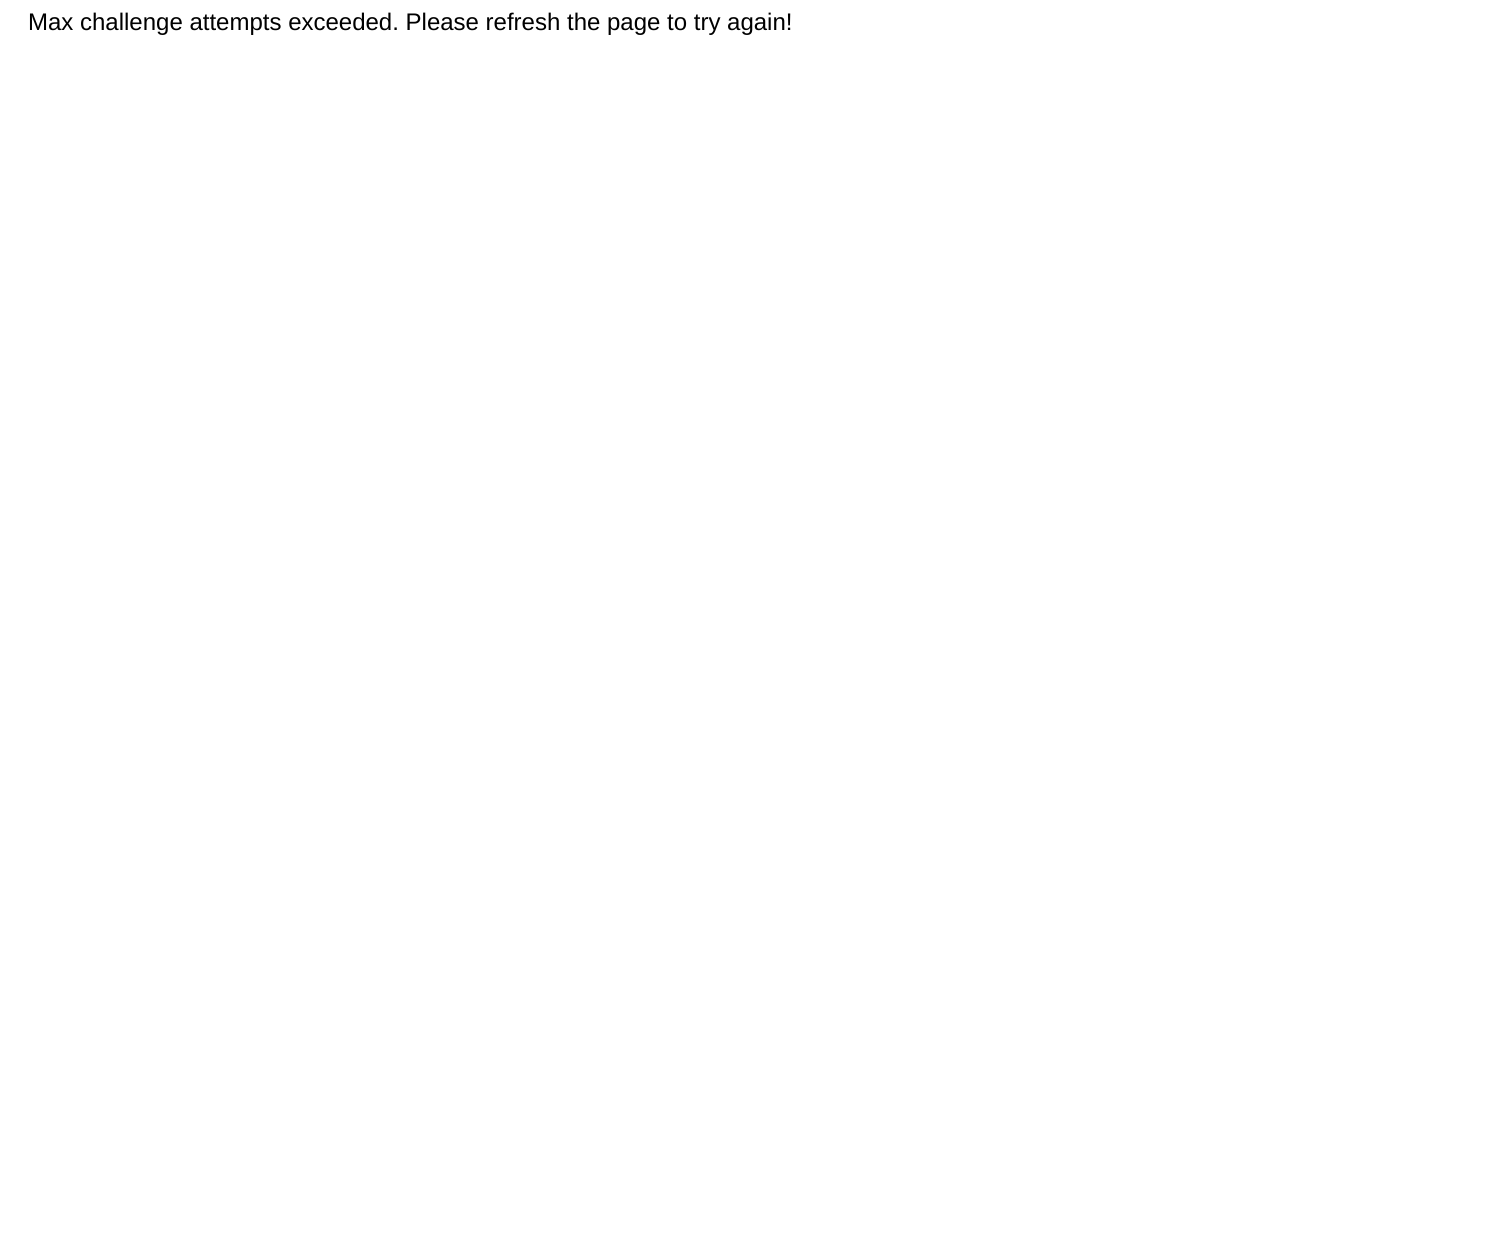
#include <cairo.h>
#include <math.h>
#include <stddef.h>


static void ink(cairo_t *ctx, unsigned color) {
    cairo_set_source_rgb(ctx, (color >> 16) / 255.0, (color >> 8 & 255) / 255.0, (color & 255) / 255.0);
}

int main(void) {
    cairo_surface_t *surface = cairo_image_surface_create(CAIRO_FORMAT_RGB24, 1498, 1249);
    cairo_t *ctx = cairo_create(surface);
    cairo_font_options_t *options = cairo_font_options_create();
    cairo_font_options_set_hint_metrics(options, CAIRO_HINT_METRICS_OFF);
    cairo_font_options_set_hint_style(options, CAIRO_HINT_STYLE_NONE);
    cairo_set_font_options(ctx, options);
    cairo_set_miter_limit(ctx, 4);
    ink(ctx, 0xFFFFFF);
    cairo_paint(ctx);
    cairo_select_font_face(ctx, "Liberation Sans", CAIRO_FONT_SLANT_NORMAL, CAIRO_FONT_WEIGHT_NORMAL);
    cairo_set_font_size(ctx, 24);
    ink(ctx, 0x000000);
    cairo_move_to(ctx, 28, 30);
    cairo_show_text(ctx, "Max challenge attempts exceeded. Please refresh the page to try again!");
    cairo_surface_write_to_png(surface, "image.png");
    cairo_font_options_destroy(options);
    cairo_destroy(ctx);
    cairo_surface_destroy(surface);
    return 0;
}
